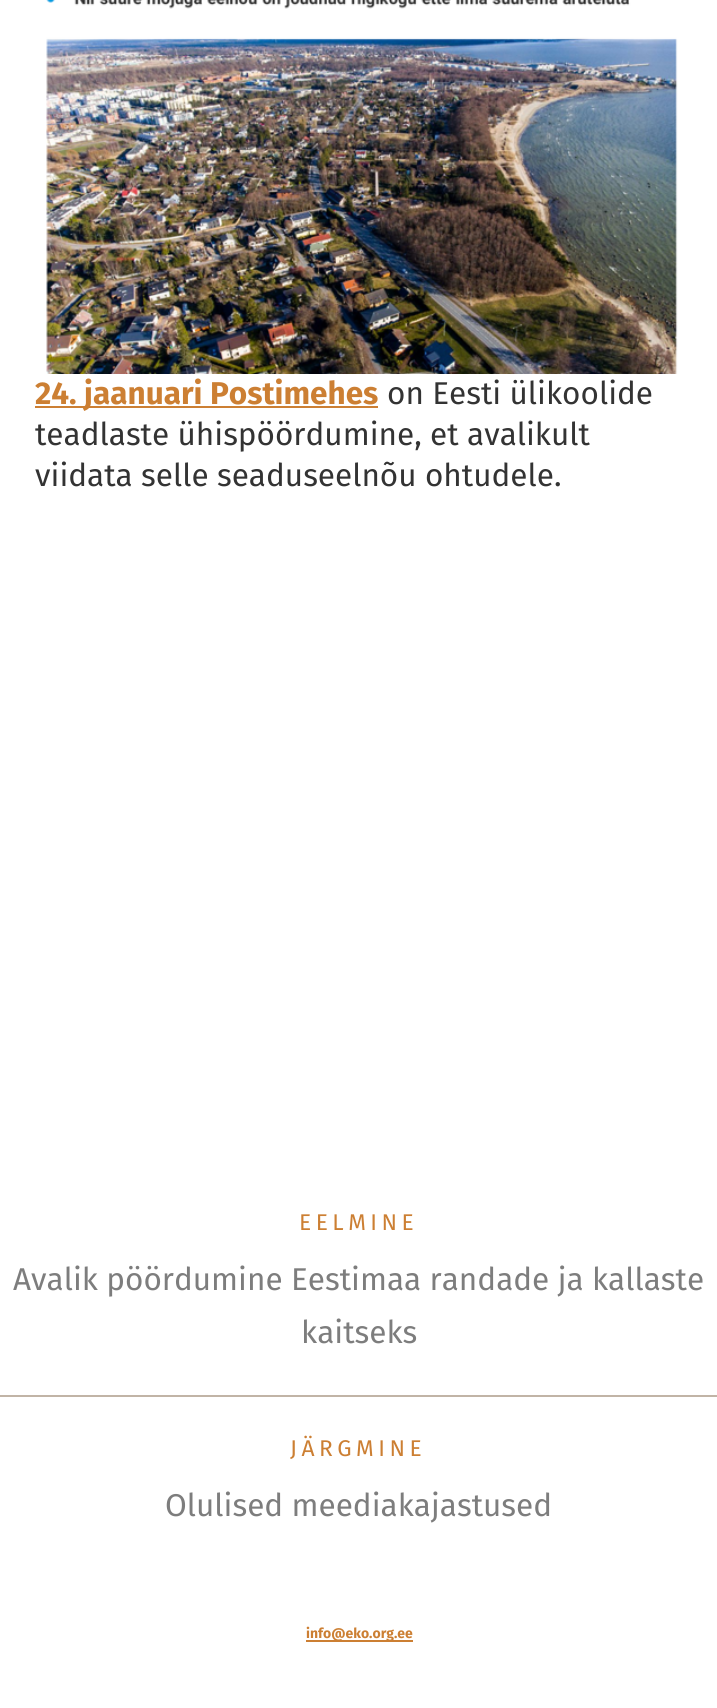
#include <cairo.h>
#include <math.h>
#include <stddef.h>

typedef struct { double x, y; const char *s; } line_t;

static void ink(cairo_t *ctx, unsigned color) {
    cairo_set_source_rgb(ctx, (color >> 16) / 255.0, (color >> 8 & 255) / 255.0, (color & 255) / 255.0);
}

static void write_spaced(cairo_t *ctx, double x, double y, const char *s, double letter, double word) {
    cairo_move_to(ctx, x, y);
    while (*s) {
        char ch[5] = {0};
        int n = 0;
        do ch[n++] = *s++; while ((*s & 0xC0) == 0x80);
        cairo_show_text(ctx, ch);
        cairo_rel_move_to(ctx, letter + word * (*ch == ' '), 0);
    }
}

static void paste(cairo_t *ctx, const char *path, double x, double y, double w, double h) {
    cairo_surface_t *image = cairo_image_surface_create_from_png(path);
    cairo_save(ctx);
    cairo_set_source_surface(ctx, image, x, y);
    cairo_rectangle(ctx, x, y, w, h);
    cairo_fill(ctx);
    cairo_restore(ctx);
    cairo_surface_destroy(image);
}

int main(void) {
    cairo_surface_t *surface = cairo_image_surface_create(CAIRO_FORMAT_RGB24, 717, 1708);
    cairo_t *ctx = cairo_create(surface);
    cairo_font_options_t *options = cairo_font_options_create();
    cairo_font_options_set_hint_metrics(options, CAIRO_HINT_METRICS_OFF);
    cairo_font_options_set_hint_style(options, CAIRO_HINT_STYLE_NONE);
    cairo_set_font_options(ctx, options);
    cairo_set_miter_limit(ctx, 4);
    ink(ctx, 0xFFFFFF);
    cairo_paint(ctx);
    paste(ctx, "media/1.png", 46, 0, 632, 374);
    ink(ctx, 0xCC7F33);
    cairo_rectangle(ctx, 35, 406, 343, 2);
    cairo_fill(ctx);
    cairo_select_font_face(ctx, "Fira Sans", CAIRO_FONT_SLANT_NORMAL, CAIRO_FONT_WEIGHT_BOLD);
    cairo_set_font_size(ctx, 31.5);
    cairo_move_to(ctx, 35, 404);
    cairo_show_text(ctx, "24. jaanuari Postimehes");
    cairo_select_font_face(ctx, "Fira Sans", CAIRO_FONT_SLANT_NORMAL, CAIRO_FONT_WEIGHT_NORMAL);
    ink(ctx, 0x333333);
    {
        static const line_t items[] = {
            {387, 404, "on Eesti ülikoolide"},
            {35, 445, "teadlaste ühispöördumine, et avalikult"},
            {35, 486, "viidata selle seaduseelnõu ohtudele."},
        };
        for (size_t i = 0; i < sizeof items / sizeof *items; i++) {
            cairo_move_to(ctx, items[i].x, items[i].y);
            cairo_show_text(ctx, items[i].s);
        }
    }
    cairo_set_font_size(ctx, 22.75);
    ink(ctx, 0xCC7F33);
    write_spaced(ctx, 299, 1230, "EELMINE", 4.5, 0);
    cairo_set_font_size(ctx, 31.5);
    ink(ctx, 0x7D7D7D);
    cairo_move_to(ctx, 13, 1290);
    cairo_show_text(ctx, "Avalik pöördumine Eestimaa randade ja kallaste");
    cairo_move_to(ctx, 301, 1343);
    cairo_show_text(ctx, "kaitseks");
    cairo_set_font_size(ctx, 22.75);
    ink(ctx, 0xCC7F33);
    write_spaced(ctx, 290, 1456, "JÄRGMINE", 4.5, 0);
    ink(ctx, 0xC1B4A6);
    cairo_rectangle(ctx, 0, 1395, 717, 2);
    cairo_fill(ctx);
    cairo_set_font_size(ctx, 31.5);
    ink(ctx, 0x7D7D7D);
    cairo_move_to(ctx, 165, 1516);
    cairo_show_text(ctx, "Olulised meediakajastused");
    ink(ctx, 0xCC7F33);
    cairo_rectangle(ctx, 306, 1640, 107, 2);
    cairo_fill(ctx);
    cairo_select_font_face(ctx, "Fira Sans", CAIRO_FONT_SLANT_NORMAL, CAIRO_FONT_WEIGHT_BOLD);
    cairo_set_font_size(ctx, 14);
    cairo_move_to(ctx, 306, 1638);
    cairo_show_text(ctx, "info@eko.org.ee");
    cairo_surface_write_to_png(surface, "image.png");
    cairo_font_options_destroy(options);
    cairo_destroy(ctx);
    cairo_surface_destroy(surface);
    return 0;
}
